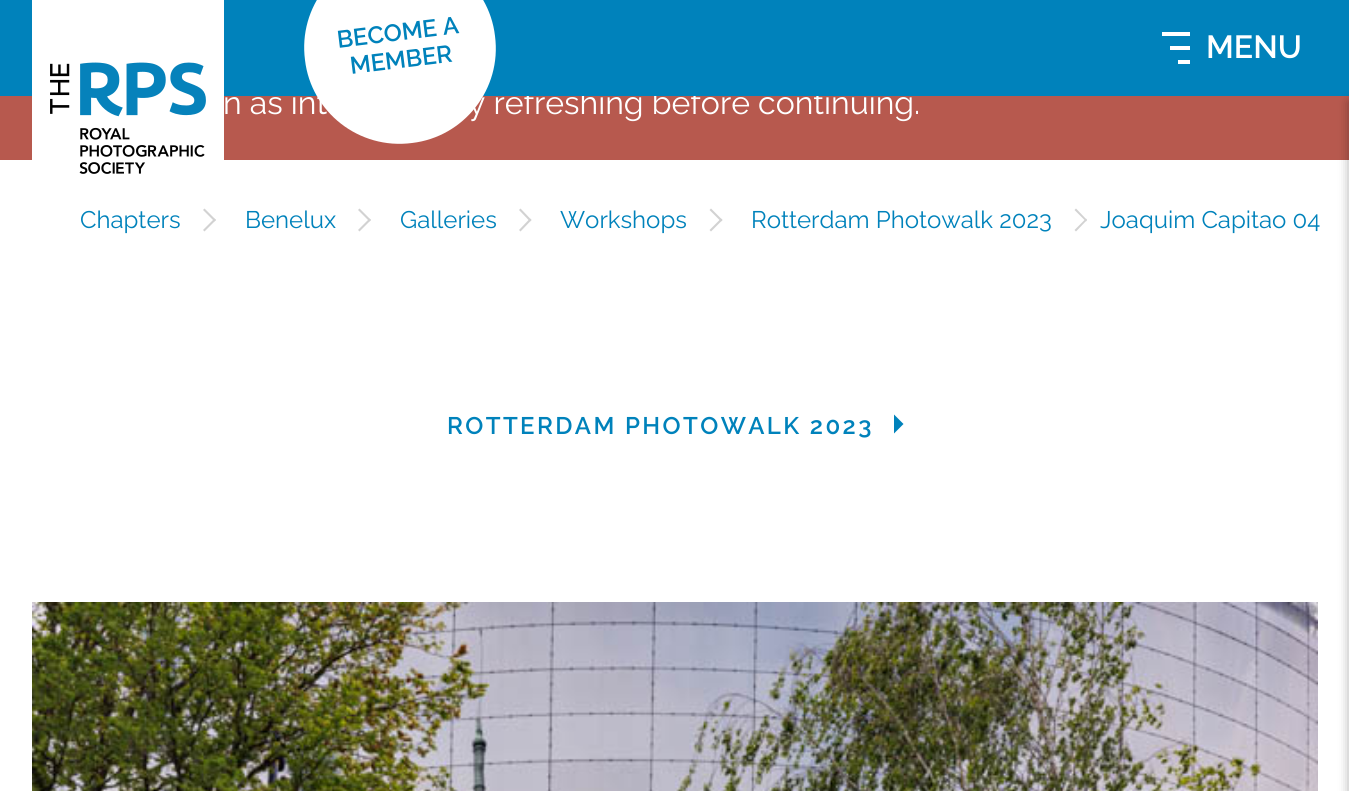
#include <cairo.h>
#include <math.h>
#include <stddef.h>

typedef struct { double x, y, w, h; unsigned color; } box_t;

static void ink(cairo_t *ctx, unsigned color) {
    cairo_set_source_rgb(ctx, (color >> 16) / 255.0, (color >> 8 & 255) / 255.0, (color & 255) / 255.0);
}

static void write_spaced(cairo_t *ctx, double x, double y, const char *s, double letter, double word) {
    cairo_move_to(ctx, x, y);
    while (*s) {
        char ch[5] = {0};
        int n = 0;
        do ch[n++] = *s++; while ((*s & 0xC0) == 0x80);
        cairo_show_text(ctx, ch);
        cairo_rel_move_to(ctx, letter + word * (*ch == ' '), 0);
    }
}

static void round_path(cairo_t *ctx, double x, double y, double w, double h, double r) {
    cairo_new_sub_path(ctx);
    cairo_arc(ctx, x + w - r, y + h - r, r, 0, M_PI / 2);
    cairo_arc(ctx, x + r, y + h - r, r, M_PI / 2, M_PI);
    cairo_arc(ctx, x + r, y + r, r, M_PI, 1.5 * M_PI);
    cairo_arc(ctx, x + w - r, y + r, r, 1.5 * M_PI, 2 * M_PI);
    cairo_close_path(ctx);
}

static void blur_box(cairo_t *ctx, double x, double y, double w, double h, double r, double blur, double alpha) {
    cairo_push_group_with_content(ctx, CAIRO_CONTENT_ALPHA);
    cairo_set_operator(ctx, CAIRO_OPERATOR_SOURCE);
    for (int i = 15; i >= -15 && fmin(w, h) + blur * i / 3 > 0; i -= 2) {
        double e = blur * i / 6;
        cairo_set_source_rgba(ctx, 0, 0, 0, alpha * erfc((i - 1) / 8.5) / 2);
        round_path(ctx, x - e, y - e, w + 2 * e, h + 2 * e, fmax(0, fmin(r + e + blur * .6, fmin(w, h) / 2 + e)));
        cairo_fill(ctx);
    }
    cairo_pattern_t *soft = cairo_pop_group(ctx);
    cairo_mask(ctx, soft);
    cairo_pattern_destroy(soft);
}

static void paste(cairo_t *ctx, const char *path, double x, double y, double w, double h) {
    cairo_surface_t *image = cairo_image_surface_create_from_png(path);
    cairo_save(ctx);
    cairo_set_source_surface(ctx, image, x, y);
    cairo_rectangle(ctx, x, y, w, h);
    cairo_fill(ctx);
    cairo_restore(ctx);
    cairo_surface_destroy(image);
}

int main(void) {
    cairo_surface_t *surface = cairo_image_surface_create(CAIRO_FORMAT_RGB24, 1349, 791);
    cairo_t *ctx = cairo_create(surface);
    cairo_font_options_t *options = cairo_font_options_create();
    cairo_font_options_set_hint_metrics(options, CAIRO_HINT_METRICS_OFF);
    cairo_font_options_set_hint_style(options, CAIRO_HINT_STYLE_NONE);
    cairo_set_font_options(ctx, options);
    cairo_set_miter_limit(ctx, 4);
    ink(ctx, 0xFFFFFF);
    cairo_paint(ctx);
    ink(ctx, 0xB7594E);
    cairo_rectangle(ctx, 0, 96, 1349, 64);
    cairo_fill(ctx);
    cairo_select_font_face(ctx, "Raleway", CAIRO_FONT_SLANT_NORMAL, CAIRO_FONT_WEIGHT_NORMAL);
    cairo_set_font_size(ctx, 32);
    ink(ctx, 0xFFFFFF);
    cairo_move_to(ctx, 223, 114);
    cairo_show_text(ctx, "n as int");
    cairo_move_to(ctx, 468, 114);
    cairo_show_text(ctx, "y refreshing before continuing.");
    ink(ctx, 0x0082BB);
    cairo_rectangle(ctx, 0, 0, 1349, 96);
    cairo_fill(ctx);
    ink(ctx, 0xFFFFFF);
    cairo_rectangle(ctx, 32, 0, 192, 160);
    cairo_fill(ctx);
    paste(ctx, "media/1.png", 50, 62, 156, 112);
    cairo_new_path(ctx);
    cairo_move_to(ctx, 388, -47);
    cairo_curve_to(ctx, 441, -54, 489, -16, 495, 36);
    cairo_curve_to(ctx, 502, 89, 464, 137, 412, 143);
    cairo_curve_to(ctx, 359, 150, 311, 112, 305, 60);
    cairo_curve_to(ctx, 298, 7, 336, -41, 388, -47);
    cairo_close_path(ctx);
    cairo_fill(ctx);
    cairo_select_font_face(ctx, "Raleway SemiBold", CAIRO_FONT_SLANT_NORMAL, CAIRO_FONT_WEIGHT_NORMAL);
    cairo_set_font_size(ctx, 24);
    ink(ctx, 0x0082BB);
    cairo_save(ctx);
    cairo_translate(ctx, 338, 48);
    cairo_rotate(ctx, -7 * M_PI / 180);
    cairo_move_to(ctx, 0, 0);
    cairo_show_text(ctx, "BECOME A");
    cairo_restore(ctx);
    cairo_save(ctx);
    cairo_translate(ctx, 351, 74);
    cairo_rotate(ctx, -7 * M_PI / 180);
    cairo_move_to(ctx, 0, 0);
    cairo_show_text(ctx, "MEMBER");
    cairo_restore(ctx);
    {
        static const box_t items[] = {
            {1162, 32, 28, 4, 0xFFFFFF},
            {1170, 46, 20, 4, 0xFFFFFF},
            {1178, 60, 12, 4, 0xFFFFFF},
        };
        for (size_t i = 0; i < sizeof items / sizeof *items; i++) {
            ink(ctx, items[i].color);
            cairo_rectangle(ctx, items[i].x, items[i].y, items[i].w, items[i].h);
            cairo_fill(ctx);
        }
    }
    cairo_set_font_size(ctx, 32);
    cairo_move_to(ctx, 1206, 58);
    cairo_show_text(ctx, "MENU");
    ink(ctx, 0x000000);
    blur_box(ctx, 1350, 102, 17, 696, 0, 6, 0.23);
    blur_box(ctx, 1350, 102, 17, 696, 0, 6, 0.16);
    cairo_select_font_face(ctx, "Raleway", CAIRO_FONT_SLANT_NORMAL, CAIRO_FONT_WEIGHT_NORMAL);
    cairo_set_font_size(ctx, 24);
    ink(ctx, 0x0082BB);
    cairo_move_to(ctx, 80, 228);
    cairo_show_text(ctx, "Chapters");
    ink(ctx, 0xD2D2D2);
    cairo_new_path(ctx);
    cairo_move_to(ctx, 204.5, 208.5);
    cairo_line_to(ctx, 216, 220);
    cairo_line_to(ctx, 214.5, 221.5);
    cairo_line_to(ctx, 203, 210);
    cairo_close_path(ctx);
    cairo_fill(ctx);
    cairo_new_path(ctx);
    cairo_move_to(ctx, 214.5, 218.5);
    cairo_line_to(ctx, 216, 220);
    cairo_line_to(ctx, 204.5, 231.5);
    cairo_line_to(ctx, 203, 230);
    cairo_close_path(ctx);
    cairo_fill(ctx);
    ink(ctx, 0x0082BB);
    cairo_move_to(ctx, 245, 228);
    cairo_show_text(ctx, "Benelux");
    ink(ctx, 0xD2D2D2);
    cairo_new_path(ctx);
    cairo_move_to(ctx, 359.5, 208.5);
    cairo_line_to(ctx, 371, 220);
    cairo_line_to(ctx, 369.5, 221.5);
    cairo_line_to(ctx, 358, 210);
    cairo_close_path(ctx);
    cairo_fill(ctx);
    cairo_new_path(ctx);
    cairo_move_to(ctx, 369.5, 218.5);
    cairo_line_to(ctx, 371, 220);
    cairo_line_to(ctx, 359.5, 231.5);
    cairo_line_to(ctx, 358, 230);
    cairo_close_path(ctx);
    cairo_fill(ctx);
    ink(ctx, 0x0082BB);
    cairo_move_to(ctx, 400, 228);
    cairo_show_text(ctx, "Galleries");
    ink(ctx, 0xD2D2D2);
    cairo_new_path(ctx);
    cairo_move_to(ctx, 520.5, 208.5);
    cairo_line_to(ctx, 531.5, 220);
    cairo_line_to(ctx, 530, 221.5);
    cairo_line_to(ctx, 519, 210);
    cairo_close_path(ctx);
    cairo_fill(ctx);
    cairo_new_path(ctx);
    cairo_move_to(ctx, 530, 218.5);
    cairo_line_to(ctx, 531.5, 220);
    cairo_line_to(ctx, 520.5, 231.5);
    cairo_line_to(ctx, 519, 230);
    cairo_close_path(ctx);
    cairo_fill(ctx);
    ink(ctx, 0x0082BB);
    cairo_move_to(ctx, 560, 228);
    cairo_show_text(ctx, "Workshops");
    ink(ctx, 0xD2D2D2);
    cairo_new_path(ctx);
    cairo_move_to(ctx, 711, 208.5);
    cairo_line_to(ctx, 722.5, 220);
    cairo_line_to(ctx, 721, 221.5);
    cairo_line_to(ctx, 709.5, 210);
    cairo_close_path(ctx);
    cairo_fill(ctx);
    cairo_new_path(ctx);
    cairo_move_to(ctx, 721, 218.5);
    cairo_line_to(ctx, 722.5, 220);
    cairo_line_to(ctx, 711, 231.5);
    cairo_line_to(ctx, 709.5, 230);
    cairo_close_path(ctx);
    cairo_fill(ctx);
    ink(ctx, 0x0082BB);
    cairo_move_to(ctx, 751, 228);
    cairo_show_text(ctx, "Rotterdam Photowalk 2023");
    ink(ctx, 0xD2D2D2);
    cairo_new_path(ctx);
    cairo_move_to(ctx, 1076, 208.5);
    cairo_line_to(ctx, 1087, 220);
    cairo_line_to(ctx, 1086, 221.5);
    cairo_line_to(ctx, 1074.5, 210);
    cairo_close_path(ctx);
    cairo_fill(ctx);
    cairo_new_path(ctx);
    cairo_move_to(ctx, 1086, 218.5);
    cairo_line_to(ctx, 1087, 220);
    cairo_line_to(ctx, 1076, 231.5);
    cairo_line_to(ctx, 1074.5, 230);
    cairo_close_path(ctx);
    cairo_fill(ctx);
    ink(ctx, 0x0082BB);
    cairo_move_to(ctx, 1100, 228);
    cairo_show_text(ctx, "Joaquim Capitao 04");
    cairo_select_font_face(ctx, "Raleway SemiBold", CAIRO_FONT_SLANT_NORMAL, CAIRO_FONT_WEIGHT_NORMAL);
    write_spaced(ctx, 447, 434, "ROTTERDAM PHOTOWALK 2023", 2.4, 0);
    cairo_new_path(ctx);
    cairo_move_to(ctx, 894, 433.5);
    cairo_line_to(ctx, 894, 414.5);
    cairo_line_to(ctx, 903.5, 424);
    cairo_close_path(ctx);
    cairo_fill(ctx);
    paste(ctx, "media/2.png", 32, 602, 1286, 189);
    cairo_surface_write_to_png(surface, "image.png");
    cairo_font_options_destroy(options);
    cairo_destroy(ctx);
    cairo_surface_destroy(surface);
    return 0;
}
